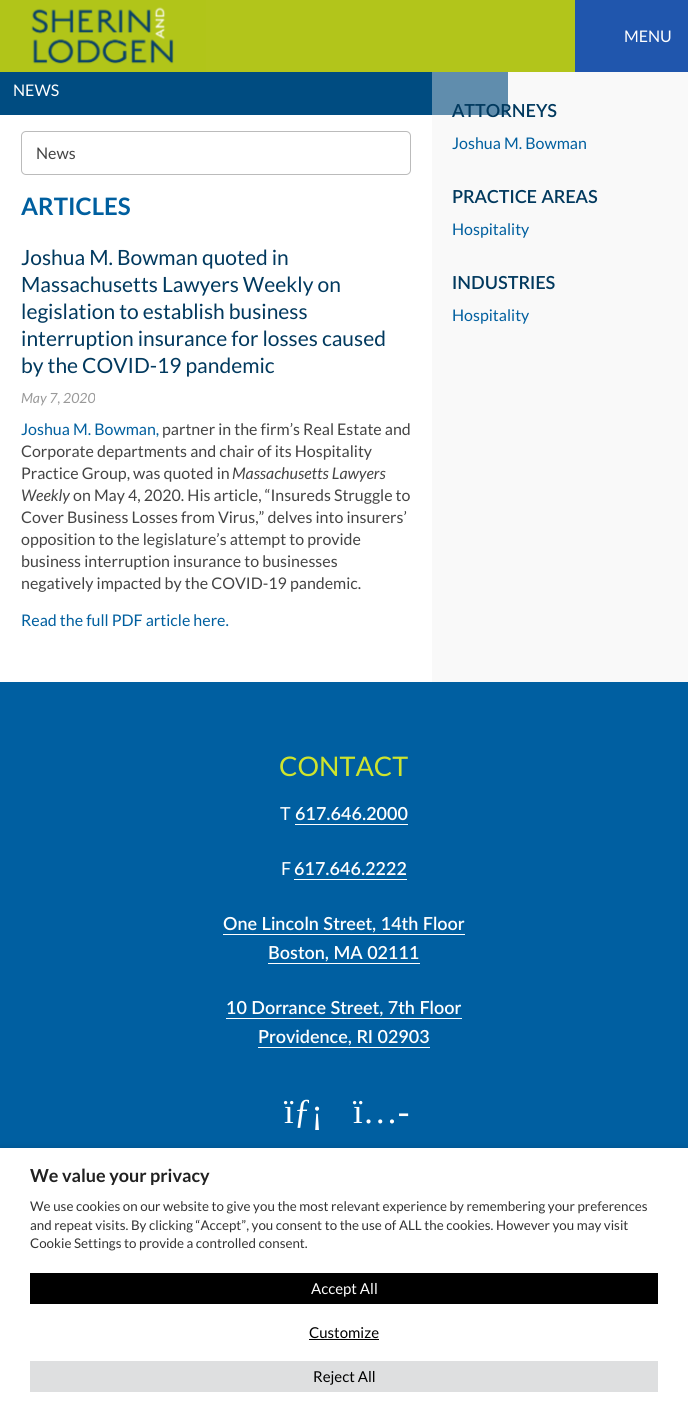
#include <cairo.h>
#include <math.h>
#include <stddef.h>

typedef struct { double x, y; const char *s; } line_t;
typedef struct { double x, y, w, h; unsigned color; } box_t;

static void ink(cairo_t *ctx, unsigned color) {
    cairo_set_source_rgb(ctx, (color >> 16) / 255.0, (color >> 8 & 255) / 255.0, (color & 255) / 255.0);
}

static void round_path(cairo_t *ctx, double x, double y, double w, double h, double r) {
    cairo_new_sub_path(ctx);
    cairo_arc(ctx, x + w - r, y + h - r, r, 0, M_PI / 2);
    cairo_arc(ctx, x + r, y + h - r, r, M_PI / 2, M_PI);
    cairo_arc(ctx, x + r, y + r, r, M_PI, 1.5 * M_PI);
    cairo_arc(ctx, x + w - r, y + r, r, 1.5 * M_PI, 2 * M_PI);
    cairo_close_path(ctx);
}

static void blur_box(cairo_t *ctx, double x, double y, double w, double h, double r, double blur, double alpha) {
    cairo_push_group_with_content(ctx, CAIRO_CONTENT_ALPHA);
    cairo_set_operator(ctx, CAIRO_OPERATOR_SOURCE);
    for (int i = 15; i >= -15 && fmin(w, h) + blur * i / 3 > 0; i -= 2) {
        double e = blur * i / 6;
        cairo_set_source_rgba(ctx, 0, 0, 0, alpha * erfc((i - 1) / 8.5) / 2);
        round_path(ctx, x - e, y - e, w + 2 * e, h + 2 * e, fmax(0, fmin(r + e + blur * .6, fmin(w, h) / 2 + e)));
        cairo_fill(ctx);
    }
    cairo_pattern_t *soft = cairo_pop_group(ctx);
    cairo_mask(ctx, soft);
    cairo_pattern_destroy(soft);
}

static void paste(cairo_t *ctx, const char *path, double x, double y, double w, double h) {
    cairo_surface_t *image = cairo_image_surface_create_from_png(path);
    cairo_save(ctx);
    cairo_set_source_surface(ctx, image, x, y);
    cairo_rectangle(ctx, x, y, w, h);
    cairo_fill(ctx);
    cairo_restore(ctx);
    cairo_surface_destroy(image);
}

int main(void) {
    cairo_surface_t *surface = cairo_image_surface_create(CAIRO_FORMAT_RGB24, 688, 1407);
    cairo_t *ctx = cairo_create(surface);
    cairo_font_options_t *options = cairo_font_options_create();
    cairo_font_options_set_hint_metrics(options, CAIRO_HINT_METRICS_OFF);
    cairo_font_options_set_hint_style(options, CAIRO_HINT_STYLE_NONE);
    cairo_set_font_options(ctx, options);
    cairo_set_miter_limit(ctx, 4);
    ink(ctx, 0x005FA1);
    cairo_paint(ctx);
    ink(ctx, 0xB1C519);
    cairo_rectangle(ctx, 0, 0, 206, 72);
    cairo_fill(ctx);
    paste(ctx, "media/1.png", 31, 7, 143, 57);
    ink(ctx, 0xB2C51B);
    cairo_rectangle(ctx, 206, 0, 369, 72);
    cairo_fill(ctx);
    ink(ctx, 0x2056AD);
    cairo_rectangle(ctx, 575, 0, 113, 72);
    cairo_fill(ctx);
    cairo_select_font_face(ctx, "Lato", CAIRO_FONT_SLANT_NORMAL, CAIRO_FONT_WEIGHT_NORMAL);
    cairo_set_font_size(ctx, 16);
    ink(ctx, 0xFFFFFF);
    cairo_move_to(ctx, 624, 42);
    cairo_show_text(ctx, "MENU");
    {
        static const box_t items[] = {
            {0, 115, 432, 567, 0xFFFFFF},
            {432, 72, 256, 610, 0xF9F9F9},
            {0, 72, 432, 43, 0x004C81},
            {432, 72, 76, 43, 0x608DAD},
        };
        for (size_t i = 0; i < sizeof items / sizeof *items; i++) {
            ink(ctx, items[i].color);
            cairo_rectangle(ctx, items[i].x, items[i].y, items[i].w, items[i].h);
            cairo_fill(ctx);
        }
    }
    ink(ctx, 0xFFFFFF);
    cairo_move_to(ctx, 13, 96);
    cairo_show_text(ctx, "NEWS");
    round_path(ctx, 21.5, 131.5, 389, 43, 4.5);
    ink(ctx, 0xBBBBBB);
    cairo_set_line_width(ctx, 1);
    cairo_stroke(ctx);
    ink(ctx, 0x444444);
    cairo_move_to(ctx, 36, 159);
    cairo_show_text(ctx, "News");
    cairo_select_font_face(ctx, "Lato", CAIRO_FONT_SLANT_NORMAL, CAIRO_FONT_WEIGHT_BOLD);
    cairo_set_font_size(ctx, 24);
    ink(ctx, 0x005F9F);
    cairo_move_to(ctx, 21, 215);
    cairo_show_text(ctx, "ARTICLES");
    cairo_select_font_face(ctx, "Lato", CAIRO_FONT_SLANT_NORMAL, CAIRO_FONT_WEIGHT_NORMAL);
    cairo_set_font_size(ctx, 21);
    ink(ctx, 0x01395E);
    {
        static const line_t items[] = {
            {21, 265, "Joshua M. Bowman quoted in"},
            {21, 292, "Massachusetts Lawyers Weekly on"},
            {21, 319, "legislation to establish business"},
            {21, 346, "interruption insurance for losses caused"},
            {21, 373, "by the COVID-19 pandemic"},
        };
        for (size_t i = 0; i < sizeof items / sizeof *items; i++) {
            cairo_move_to(ctx, items[i].x, items[i].y);
            cairo_show_text(ctx, items[i].s);
        }
    }
    cairo_select_font_face(ctx, "Lato", CAIRO_FONT_SLANT_ITALIC, CAIRO_FONT_WEIGHT_NORMAL);
    cairo_set_font_size(ctx, 14);
    ink(ctx, 0x999999);
    cairo_move_to(ctx, 21, 403);
    cairo_show_text(ctx, "May 7, 2020");
    cairo_select_font_face(ctx, "Lato", CAIRO_FONT_SLANT_NORMAL, CAIRO_FONT_WEIGHT_NORMAL);
    cairo_set_font_size(ctx, 16);
    ink(ctx, 0x005F9F);
    cairo_move_to(ctx, 21, 435);
    cairo_show_text(ctx, "Joshua M. Bowman,");
    ink(ctx, 0x444444);
    {
        static const line_t items[] = {
            {162, 435, "partner in the firm’s Real Estate and"},
            {21, 457, "Corporate departments and chair of its Hospitality"},
            {21, 479, "Practice Group, was quoted in"},
        };
        for (size_t i = 0; i < sizeof items / sizeof *items; i++) {
            cairo_move_to(ctx, items[i].x, items[i].y);
            cairo_show_text(ctx, items[i].s);
        }
    }
    cairo_select_font_face(ctx, "Lato", CAIRO_FONT_SLANT_ITALIC, CAIRO_FONT_WEIGHT_NORMAL);
    cairo_move_to(ctx, 232, 479);
    cairo_show_text(ctx, "Massachusetts Lawyers");
    cairo_move_to(ctx, 21, 501);
    cairo_show_text(ctx, "Weekly");
    cairo_select_font_face(ctx, "Lato", CAIRO_FONT_SLANT_NORMAL, CAIRO_FONT_WEIGHT_NORMAL);
    {
        static const line_t items[] = {
            {73, 501, "on May 4, 2020. His article, “Insureds Struggle to"},
            {21, 523, "Cover Business Losses from Virus,” delves into insurers’"},
            {21, 545, "opposition to the legislature’s attempt to provide"},
            {21, 567, "business interruption insurance to businesses"},
            {21, 589, "negatively impacted by the COVID-19 pandemic."},
        };
        for (size_t i = 0; i < sizeof items / sizeof *items; i++) {
            cairo_move_to(ctx, items[i].x, items[i].y);
            cairo_show_text(ctx, items[i].s);
        }
    }
    ink(ctx, 0x005F9F);
    cairo_move_to(ctx, 21, 626);
    cairo_show_text(ctx, "Read the full PDF article here.");
    cairo_select_font_face(ctx, "Lato SemiBold", CAIRO_FONT_SLANT_NORMAL, CAIRO_FONT_WEIGHT_NORMAL);
    cairo_set_font_size(ctx, 18);
    ink(ctx, 0x01395E);
    cairo_move_to(ctx, 452, 117);
    cairo_show_text(ctx, "ATTORNEYS");
    cairo_select_font_face(ctx, "Lato", CAIRO_FONT_SLANT_NORMAL, CAIRO_FONT_WEIGHT_NORMAL);
    cairo_set_font_size(ctx, 16);
    ink(ctx, 0x005F9F);
    cairo_move_to(ctx, 452, 149);
    cairo_show_text(ctx, "Joshua M. Bowman");
    cairo_select_font_face(ctx, "Lato SemiBold", CAIRO_FONT_SLANT_NORMAL, CAIRO_FONT_WEIGHT_NORMAL);
    cairo_set_font_size(ctx, 18);
    ink(ctx, 0x01395E);
    cairo_move_to(ctx, 452, 203);
    cairo_show_text(ctx, "PRACTICE AREAS");
    cairo_select_font_face(ctx, "Lato", CAIRO_FONT_SLANT_NORMAL, CAIRO_FONT_WEIGHT_NORMAL);
    cairo_set_font_size(ctx, 16);
    ink(ctx, 0x005F9F);
    cairo_move_to(ctx, 452, 235);
    cairo_show_text(ctx, "Hospitality");
    cairo_select_font_face(ctx, "Lato SemiBold", CAIRO_FONT_SLANT_NORMAL, CAIRO_FONT_WEIGHT_NORMAL);
    cairo_set_font_size(ctx, 18);
    ink(ctx, 0x01395E);
    cairo_move_to(ctx, 452, 289);
    cairo_show_text(ctx, "INDUSTRIES");
    cairo_select_font_face(ctx, "Lato", CAIRO_FONT_SLANT_NORMAL, CAIRO_FONT_WEIGHT_NORMAL);
    cairo_set_font_size(ctx, 16);
    ink(ctx, 0x005F9F);
    cairo_move_to(ctx, 452, 321);
    cairo_show_text(ctx, "Hospitality");
    cairo_set_font_size(ctx, 27);
    ink(ctx, 0xCFE42D);
    cairo_move_to(ctx, 279, 776);
    cairo_show_text(ctx, "CONTACT");
    cairo_set_font_size(ctx, 18);
    ink(ctx, 0xFFFFFF);
    cairo_move_to(ctx, 280, 820);
    cairo_show_text(ctx, "T");
    cairo_select_font_face(ctx, "Lato SemiBold", CAIRO_FONT_SLANT_NORMAL, CAIRO_FONT_WEIGHT_NORMAL);
    cairo_move_to(ctx, 295, 820);
    cairo_show_text(ctx, "617.646.2000");
    cairo_rectangle(ctx, 295, 824, 113, 1);
    cairo_fill(ctx);
    cairo_select_font_face(ctx, "Lato", CAIRO_FONT_SLANT_NORMAL, CAIRO_FONT_WEIGHT_NORMAL);
    cairo_move_to(ctx, 281, 875);
    cairo_show_text(ctx, "F");
    cairo_select_font_face(ctx, "Lato SemiBold", CAIRO_FONT_SLANT_NORMAL, CAIRO_FONT_WEIGHT_NORMAL);
    cairo_move_to(ctx, 294, 875);
    cairo_show_text(ctx, "617.646.2222");
    cairo_rectangle(ctx, 294, 879, 113, 1);
    cairo_fill(ctx);
    cairo_move_to(ctx, 223, 930);
    cairo_show_text(ctx, "One Lincoln Street, 14th Floor");
    cairo_rectangle(ctx, 223, 934, 242, 1);
    cairo_fill(ctx);
    cairo_move_to(ctx, 268, 959);
    cairo_show_text(ctx, "Boston, MA 02111");
    cairo_rectangle(ctx, 268, 963, 152, 1);
    cairo_fill(ctx);
    cairo_move_to(ctx, 226, 1014);
    cairo_show_text(ctx, "10 Dorrance Street, 7th Floor");
    cairo_rectangle(ctx, 226, 1018, 236, 1);
    cairo_fill(ctx);
    cairo_move_to(ctx, 258, 1043);
    cairo_show_text(ctx, "Providence, RI 02903");
    cairo_rectangle(ctx, 258, 1047, 172, 1);
    cairo_fill(ctx);
    cairo_select_font_face(ctx, "Liberation Serif", CAIRO_FONT_SLANT_NORMAL, CAIRO_FONT_WEIGHT_NORMAL);
    cairo_set_font_size(ctx, 35);
    cairo_move_to(ctx, 284, 1123);
    cairo_show_text(ctx, "ïƒ¡");
    cairo_move_to(ctx, 353, 1123);
    cairo_show_text(ctx, "ï…-");
    ink(ctx, 0x000000);
    blur_box(ctx, 0, 1153, 688, 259, 0, 5, 0.5);
    ink(ctx, 0xFFFFFF);
    cairo_rectangle(ctx, 0, 1148, 688, 259);
    cairo_fill(ctx);
    cairo_select_font_face(ctx, "Lato", CAIRO_FONT_SLANT_NORMAL, CAIRO_FONT_WEIGHT_BOLD);
    cairo_set_font_size(ctx, 18);
    ink(ctx, 0x212121);
    cairo_move_to(ctx, 30, 1182);
    cairo_show_text(ctx, "We value your privacy");
    cairo_select_font_face(ctx, "Lato", CAIRO_FONT_SLANT_NORMAL, CAIRO_FONT_WEIGHT_NORMAL);
    cairo_set_font_size(ctx, 13.35);
    ink(ctx, 0x333333);
    {
        static const line_t items[] = {
            {30, 1211, "We use cookies on our website to give you the most relevant experience by remembering your preferences"},
            {30, 1230, "and repeat visits. By clicking “Accept”, you consent to the use of ALL the cookies. However you may visit"},
            {30, 1248, "Cookie Settings to provide a controlled consent."},
        };
        for (size_t i = 0; i < sizeof items / sizeof *items; i++) {
            cairo_move_to(ctx, items[i].x, items[i].y);
            cairo_show_text(ctx, items[i].s);
        }
    }
    ink(ctx, 0x000000);
    cairo_rectangle(ctx, 30, 1273, 628, 31);
    cairo_fill(ctx);
    cairo_set_font_size(ctx, 15);
    ink(ctx, 0xFFFFFF);
    cairo_move_to(ctx, 311, 1294);
    cairo_show_text(ctx, "Accept All");
    ink(ctx, 0x000000);
    cairo_move_to(ctx, 309, 1338);
    cairo_show_text(ctx, "Customize");
    cairo_rectangle(ctx, 309, 1339, 70, 1);
    cairo_fill(ctx);
    ink(ctx, 0xDEDFE0);
    cairo_rectangle(ctx, 30, 1361, 628, 31);
    cairo_fill(ctx);
    ink(ctx, 0x000000);
    cairo_move_to(ctx, 313, 1382);
    cairo_show_text(ctx, "Reject All");
    cairo_surface_write_to_png(surface, "image.png");
    cairo_font_options_destroy(options);
    cairo_destroy(ctx);
    cairo_surface_destroy(surface);
    return 0;
}
